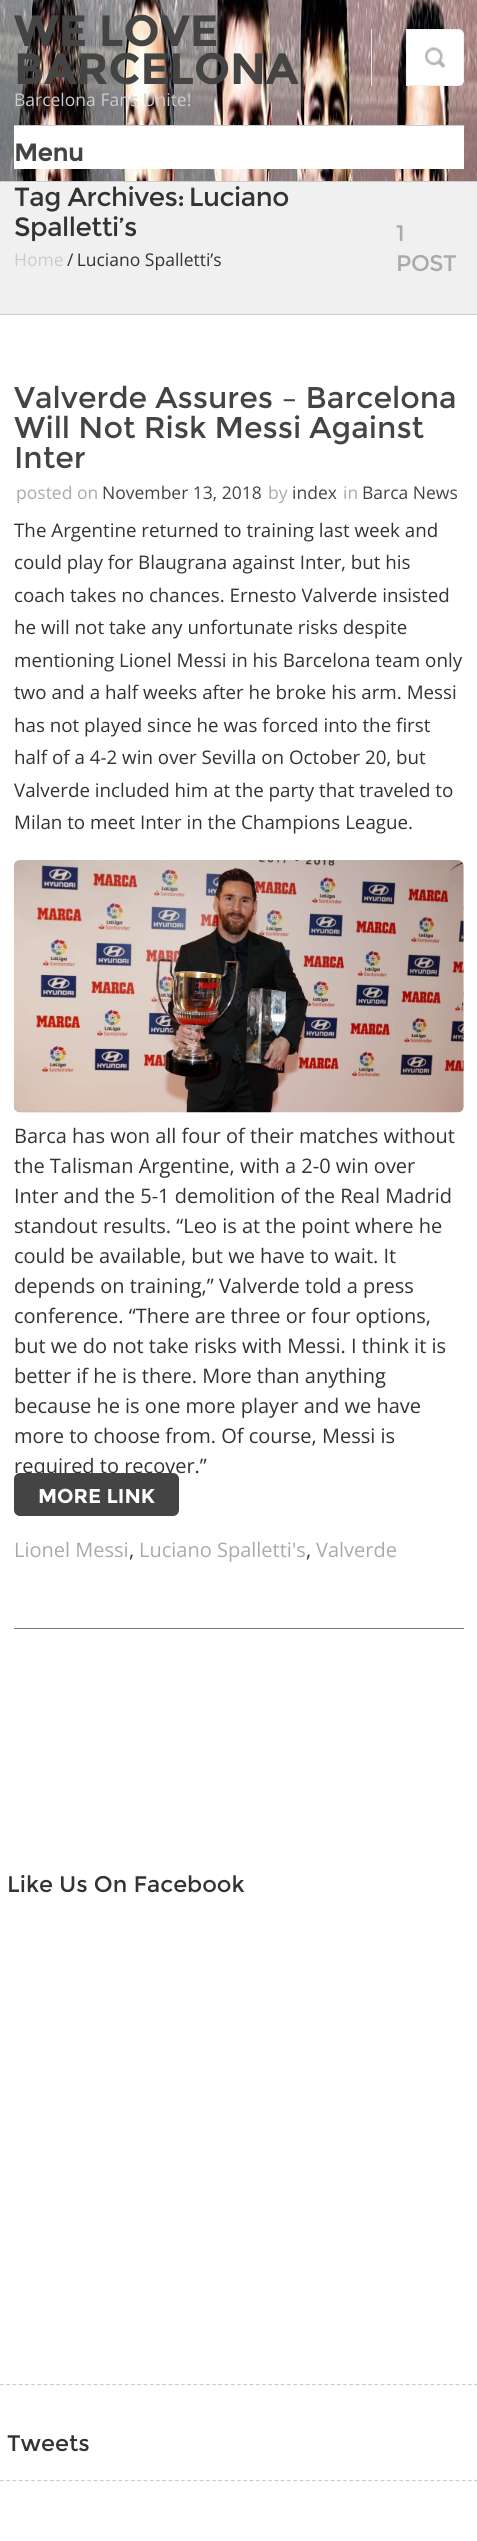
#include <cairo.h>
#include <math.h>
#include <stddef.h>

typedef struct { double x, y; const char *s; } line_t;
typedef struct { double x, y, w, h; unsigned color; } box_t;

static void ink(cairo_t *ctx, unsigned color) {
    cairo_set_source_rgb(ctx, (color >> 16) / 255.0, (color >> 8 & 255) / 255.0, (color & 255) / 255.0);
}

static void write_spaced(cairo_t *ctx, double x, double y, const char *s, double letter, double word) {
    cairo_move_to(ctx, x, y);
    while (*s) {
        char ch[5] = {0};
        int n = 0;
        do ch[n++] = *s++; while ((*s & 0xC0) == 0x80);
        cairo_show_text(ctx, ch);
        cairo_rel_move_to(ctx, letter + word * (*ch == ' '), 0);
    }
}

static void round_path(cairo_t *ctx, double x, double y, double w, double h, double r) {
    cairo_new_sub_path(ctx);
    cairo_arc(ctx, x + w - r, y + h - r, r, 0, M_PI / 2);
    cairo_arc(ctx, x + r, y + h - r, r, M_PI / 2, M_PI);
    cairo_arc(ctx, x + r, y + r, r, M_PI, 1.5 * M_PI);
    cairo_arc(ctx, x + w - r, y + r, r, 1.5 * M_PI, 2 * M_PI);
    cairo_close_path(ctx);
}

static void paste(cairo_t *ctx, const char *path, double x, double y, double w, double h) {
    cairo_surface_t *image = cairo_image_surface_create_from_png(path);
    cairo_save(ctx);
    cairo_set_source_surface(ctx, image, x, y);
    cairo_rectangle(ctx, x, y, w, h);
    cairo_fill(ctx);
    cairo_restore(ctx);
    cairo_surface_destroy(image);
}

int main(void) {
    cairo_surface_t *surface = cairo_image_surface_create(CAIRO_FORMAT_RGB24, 477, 2541);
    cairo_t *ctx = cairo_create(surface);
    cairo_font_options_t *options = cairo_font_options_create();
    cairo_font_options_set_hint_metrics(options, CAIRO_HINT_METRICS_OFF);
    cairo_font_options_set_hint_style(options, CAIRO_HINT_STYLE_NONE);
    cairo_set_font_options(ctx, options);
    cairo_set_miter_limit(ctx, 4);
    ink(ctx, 0xFFFFFF);
    cairo_paint(ctx);
    paste(ctx, "media/1.png", 0, 0, 477, 181);
    cairo_select_font_face(ctx, "Montserrat", CAIRO_FONT_SLANT_NORMAL, CAIRO_FONT_WEIGHT_BOLD);
    cairo_set_font_size(ctx, 43.75);
    ink(ctx, 0x444444);
    cairo_move_to(ctx, 14, 46);
    cairo_show_text(ctx, "WE LOVE");
    cairo_move_to(ctx, 14, 84);
    cairo_show_text(ctx, "BARCELONA");
    cairo_select_font_face(ctx, "Open Sans", CAIRO_FONT_SLANT_NORMAL, CAIRO_FONT_WEIGHT_NORMAL);
    cairo_set_font_size(ctx, 17.5);
    ink(ctx, 0xCCCCCC);
    cairo_move_to(ctx, 14, 106);
    cairo_show_text(ctx, "Barcelona Fans Unite!");
    ink(ctx, 0xE5E5E5);
    cairo_rectangle(ctx, 371, 29, 1, 57);
    cairo_fill(ctx);
    ink(ctx, 0xFFFFFF);
    cairo_new_path(ctx);
    cairo_move_to(ctx, 406, 29);
    cairo_line_to(ctx, 458, 29);
    cairo_curve_to(ctx, 461.5, 29, 464, 31.5, 464, 35);
    cairo_line_to(ctx, 464, 80);
    cairo_curve_to(ctx, 464, 83.5, 461.5, 86, 458, 86);
    cairo_line_to(ctx, 406, 86);
    cairo_close_path(ctx);
    cairo_fill(ctx);
    paste(ctx, "media/2.png", 425, 47, 21, 21);
    cairo_new_path(ctx);
    cairo_move_to(ctx, 406.5, 29.5);
    cairo_line_to(ctx, 458, 29.5);
    cairo_curve_to(ctx, 461, 29.5, 463.5, 32, 463.5, 35);
    cairo_line_to(ctx, 463.5, 80);
    cairo_curve_to(ctx, 463.5, 83, 461, 85.5, 458, 85.5);
    cairo_line_to(ctx, 406.5, 85.5);
    cairo_close_path(ctx);
    ink(ctx, 0xF0F0F0);
    cairo_set_line_width(ctx, 1);
    cairo_stroke(ctx);
    ink(ctx, 0xFFFFFF);
    cairo_rectangle(ctx, 14, 126, 450, 43);
    cairo_fill(ctx);
    ink(ctx, 0xCCCCCC);
    cairo_rectangle(ctx, 14, 125, 450, 1);
    cairo_fill(ctx);
    cairo_select_font_face(ctx, "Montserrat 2", CAIRO_FONT_SLANT_NORMAL, CAIRO_FONT_WEIGHT_BOLD);
    cairo_set_font_size(ctx, 24);
    ink(ctx, 0x444444);
    cairo_move_to(ctx, 14, 161);
    cairo_show_text(ctx, "Menu");
    {
        static const box_t items[] = {
            {0, 182, 477, 132, 0xF0F0F0},
            {0, 181, 477, 1, 0xCCCCCC},
            {0, 314, 477, 1, 0xCCCCCC},
        };
        for (size_t i = 0; i < sizeof items / sizeof *items; i++) {
            ink(ctx, items[i].color);
            cairo_rectangle(ctx, items[i].x, items[i].y, items[i].w, items[i].h);
            cairo_fill(ctx);
        }
    }
    cairo_select_font_face(ctx, "Montserrat", CAIRO_FONT_SLANT_NORMAL, CAIRO_FONT_WEIGHT_NORMAL);
    cairo_set_font_size(ctx, 26.25);
    ink(ctx, 0x333333);
    write_spaced(ctx, 14, 206, "Tag Archives: Luciano", -0.5, 0);
    write_spaced(ctx, 14, 236, "Spalletti’s", -0.5, 0);
    cairo_select_font_face(ctx, "Open Sans", CAIRO_FONT_SLANT_NORMAL, CAIRO_FONT_WEIGHT_NORMAL);
    cairo_set_font_size(ctx, 17.5);
    ink(ctx, 0xCCCCCC);
    cairo_move_to(ctx, 14, 266);
    cairo_show_text(ctx, "Home");
    ink(ctx, 0x333333);
    cairo_move_to(ctx, 67, 266);
    cairo_show_text(ctx, "/ Luciano Spalletti’s");
    cairo_select_font_face(ctx, "Montserrat", CAIRO_FONT_SLANT_NORMAL, CAIRO_FONT_WEIGHT_NORMAL);
    cairo_set_font_size(ctx, 22.5);
    ink(ctx, 0xAAAAAA);
    write_spaced(ctx, 396, 241, "1", -0.5, 0);
    write_spaced(ctx, 396, 271, "POST", -0.5, 0);
    ink(ctx, 0x777777);
    cairo_rectangle(ctx, 14, 1628, 450, 1);
    cairo_fill(ctx);
    cairo_set_font_size(ctx, 30);
    ink(ctx, 0x444444);
    {
        static const line_t items[] = {
            {14, 408, "Valverde Assures – Barcelona"},
            {14, 438, "Will Not Risk Messi Against"},
            {14, 468, "Inter"},
        };
        for (size_t i = 0; i < sizeof items / sizeof *items; i++) {
            cairo_move_to(ctx, items[i].x, items[i].y);
            cairo_show_text(ctx, items[i].s);
        }
    }
    cairo_select_font_face(ctx, "Open Sans", CAIRO_FONT_SLANT_NORMAL, CAIRO_FONT_WEIGHT_NORMAL);
    cairo_set_font_size(ctx, 17.5);
    ink(ctx, 0xAAAAAA);
    cairo_move_to(ctx, 16, 499);
    cairo_show_text(ctx, "posted on");
    ink(ctx, 0x444444);
    cairo_move_to(ctx, 102, 499);
    cairo_show_text(ctx, "November 13, 2018");
    ink(ctx, 0xAAAAAA);
    cairo_move_to(ctx, 268, 499);
    cairo_show_text(ctx, "by");
    ink(ctx, 0x444444);
    cairo_move_to(ctx, 292, 499);
    cairo_show_text(ctx, "index");
    ink(ctx, 0xAAAAAA);
    cairo_move_to(ctx, 343, 499);
    cairo_show_text(ctx, "in");
    ink(ctx, 0x444444);
    cairo_move_to(ctx, 362, 499);
    cairo_show_text(ctx, "Barca News");
    cairo_set_font_size(ctx, 18.75);
    ink(ctx, 0x333333);
    {
        static const line_t items[] = {
            {14, 537, "The Argentine returned to training last week and"},
            {14, 569, "could play for Blaugrana against Inter, but his"},
            {14, 602, "coach takes no chances. Ernesto Valverde insisted"},
            {14, 634, "he will not take any unfortunate risks despite"},
            {14, 667, "mentioning Lionel Messi in his Barcelona team only"},
            {14, 699, "two and a half weeks after he broke his arm. Messi"},
            {14, 732, "has not played since he was forced into the first"},
            {14, 764, "half of a 4-2 win over Sevilla on October 20, but"},
            {14, 797, "Valverde included him at the party that traveled to"},
            {14, 829, "Milan to meet Inter in the Champions League."},
        };
        for (size_t i = 0; i < sizeof items / sizeof *items; i++) {
            cairo_move_to(ctx, items[i].x, items[i].y);
            cairo_show_text(ctx, items[i].s);
        }
    }
    paste(ctx, "media/3.png", 13, 860, 451, 253);
    cairo_select_font_face(ctx, "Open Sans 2", CAIRO_FONT_SLANT_NORMAL, CAIRO_FONT_WEIGHT_NORMAL);
    cairo_set_font_size(ctx, 20);
    {
        static const line_t items[] = {
            {14, 1143, "Barca has won all four of their matches without"},
            {14, 1173, "the Talisman Argentine, with a 2-0 win over"},
            {14, 1203, "Inter and the 5-1 demolition of the Real Madrid"},
            {14, 1233, "standout results. “Leo is at the point where he"},
            {14, 1263, "could be available, but we have to wait. It"},
            {14, 1293, "depends on training,” Valverde told a press"},
            {14, 1323, "conference. “There are three or four options,"},
            {14, 1353, "but we do not take risks with Messi. I think it is"},
            {14, 1383, "better if he is there. More than anything"},
            {14, 1413, "because he is one more player and we have"},
            {14, 1443, "more to choose from. Of course, Messi is"},
            {14, 1473, "required to recover.”"},
        };
        for (size_t i = 0; i < sizeof items / sizeof *items; i++) {
            cairo_move_to(ctx, items[i].x, items[i].y);
            cairo_show_text(ctx, items[i].s);
        }
    }
    ink(ctx, 0x444444);
    round_path(ctx, 14, 1473, 165, 43, 6);
    cairo_fill(ctx);
    cairo_select_font_face(ctx, "Montserrat", CAIRO_FONT_SLANT_NORMAL, CAIRO_FONT_WEIGHT_BOLD);
    ink(ctx, 0xFFFFFF);
    cairo_move_to(ctx, 38, 1503);
    cairo_show_text(ctx, "MORE LINK");
    cairo_select_font_face(ctx, "Open Sans 2", CAIRO_FONT_SLANT_NORMAL, CAIRO_FONT_WEIGHT_NORMAL);
    ink(ctx, 0xAAAAAA);
    cairo_move_to(ctx, 14, 1557);
    cairo_show_text(ctx, "Lionel Messi");
    ink(ctx, 0x333333);
    cairo_move_to(ctx, 129, 1557);
    cairo_show_text(ctx, ",");
    ink(ctx, 0xAAAAAA);
    cairo_move_to(ctx, 139, 1557);
    cairo_show_text(ctx, "Luciano Spalletti's");
    ink(ctx, 0x333333);
    cairo_move_to(ctx, 306, 1557);
    cairo_show_text(ctx, ",");
    ink(ctx, 0xAAAAAA);
    cairo_move_to(ctx, 316, 1557);
    cairo_show_text(ctx, "Valverde");
    cairo_new_path(ctx);
    cairo_move_to(ctx, 0, 2384.5);
    cairo_line_to(ctx, 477.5, 2384.5);
    ink(ctx, 0xCCCCCC);
    cairo_set_line_width(ctx, 1.2);
    cairo_set_dash(ctx, (double[]){3.75, 2.49}, 2, 0);
    cairo_stroke(ctx);
    cairo_select_font_face(ctx, "Montserrat", CAIRO_FONT_SLANT_NORMAL, CAIRO_FONT_WEIGHT_NORMAL);
    cairo_set_font_size(ctx, 22.5);
    ink(ctx, 0x333333);
    cairo_move_to(ctx, 7, 1892);
    cairo_show_text(ctx, "Like Us On Facebook");
    cairo_new_path(ctx);
    cairo_move_to(ctx, 0, 2480.5);
    cairo_line_to(ctx, 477.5, 2480.5);
    ink(ctx, 0xCCCCCC);
    cairo_stroke(ctx);
    ink(ctx, 0x333333);
    cairo_move_to(ctx, 7, 2451);
    cairo_show_text(ctx, "Tweets");
    cairo_surface_write_to_png(surface, "image.png");
    cairo_font_options_destroy(options);
    cairo_destroy(ctx);
    cairo_surface_destroy(surface);
    return 0;
}
